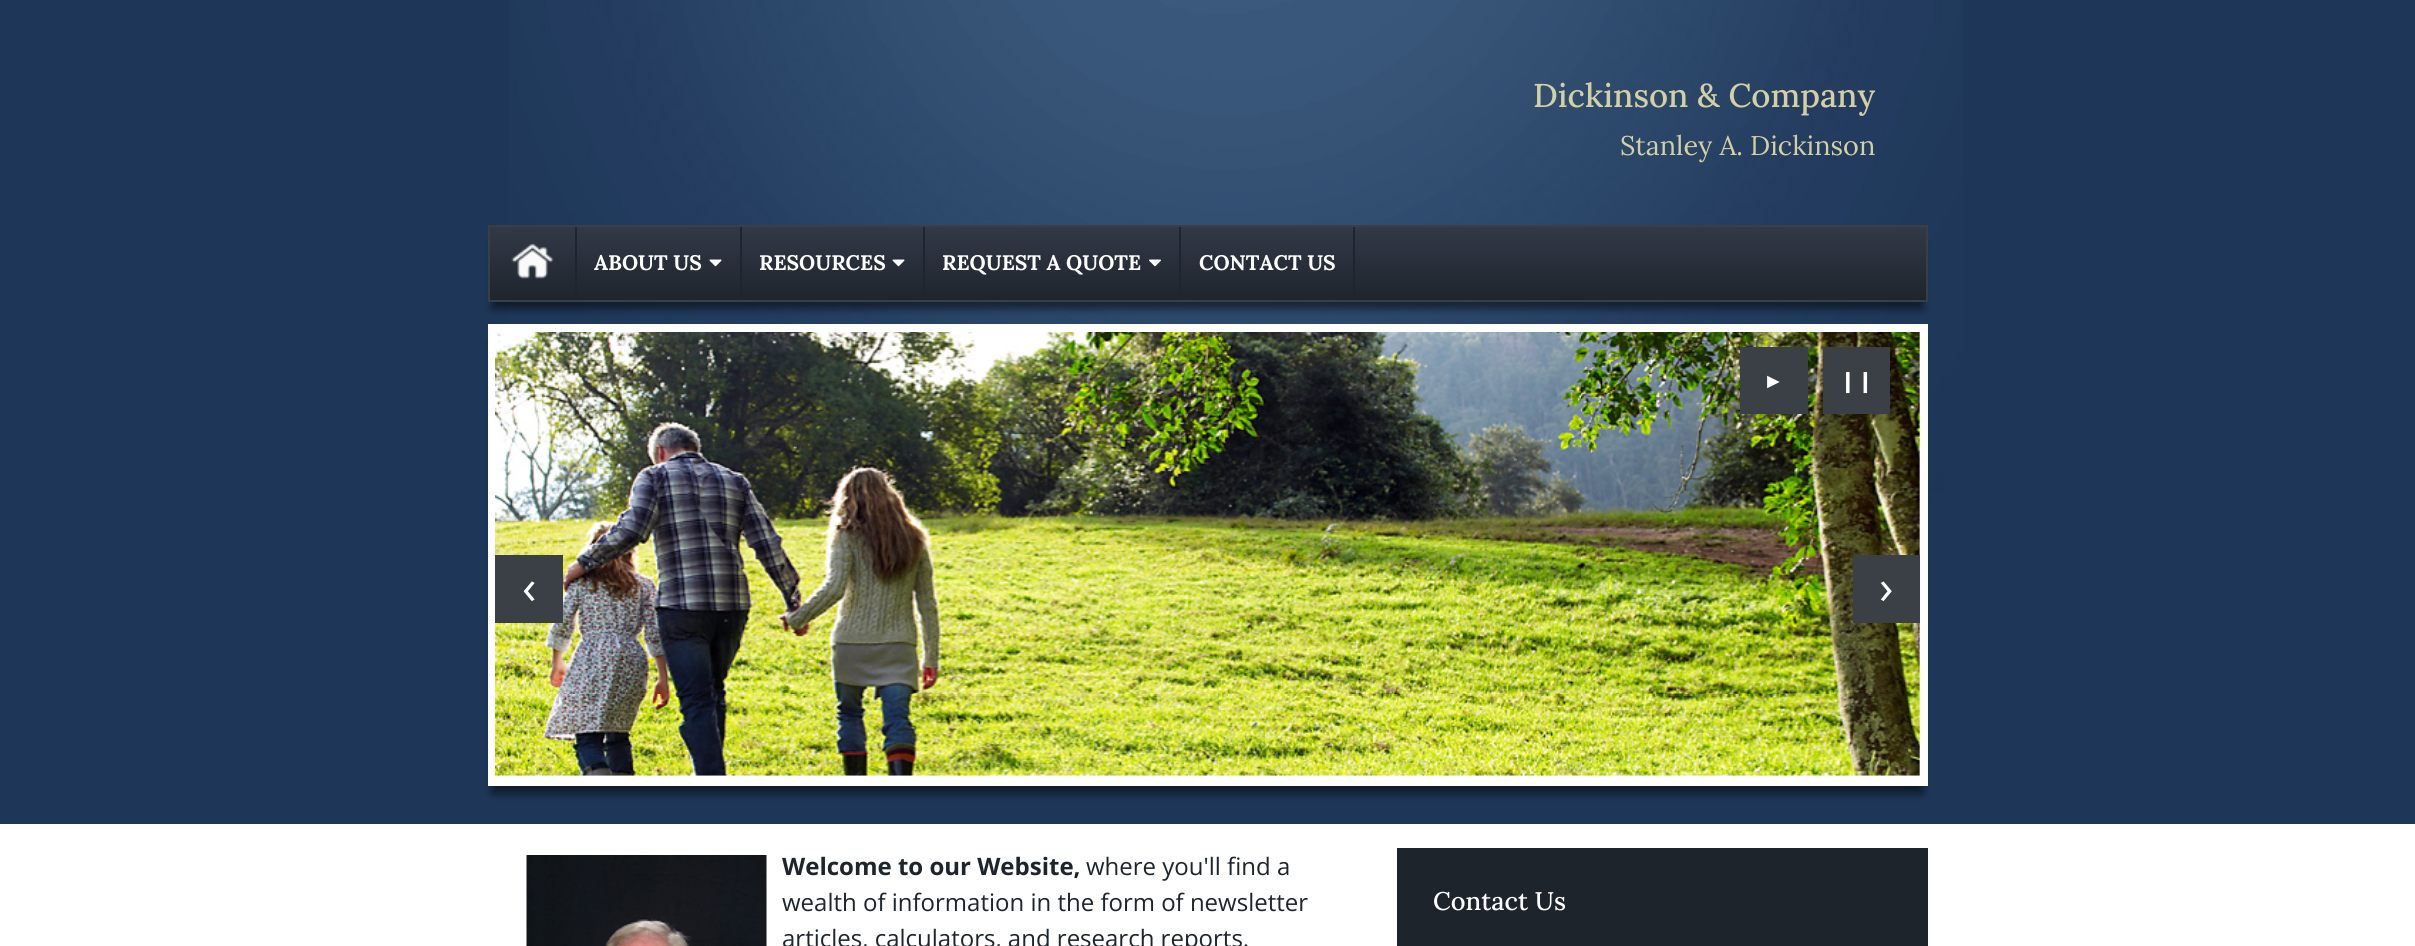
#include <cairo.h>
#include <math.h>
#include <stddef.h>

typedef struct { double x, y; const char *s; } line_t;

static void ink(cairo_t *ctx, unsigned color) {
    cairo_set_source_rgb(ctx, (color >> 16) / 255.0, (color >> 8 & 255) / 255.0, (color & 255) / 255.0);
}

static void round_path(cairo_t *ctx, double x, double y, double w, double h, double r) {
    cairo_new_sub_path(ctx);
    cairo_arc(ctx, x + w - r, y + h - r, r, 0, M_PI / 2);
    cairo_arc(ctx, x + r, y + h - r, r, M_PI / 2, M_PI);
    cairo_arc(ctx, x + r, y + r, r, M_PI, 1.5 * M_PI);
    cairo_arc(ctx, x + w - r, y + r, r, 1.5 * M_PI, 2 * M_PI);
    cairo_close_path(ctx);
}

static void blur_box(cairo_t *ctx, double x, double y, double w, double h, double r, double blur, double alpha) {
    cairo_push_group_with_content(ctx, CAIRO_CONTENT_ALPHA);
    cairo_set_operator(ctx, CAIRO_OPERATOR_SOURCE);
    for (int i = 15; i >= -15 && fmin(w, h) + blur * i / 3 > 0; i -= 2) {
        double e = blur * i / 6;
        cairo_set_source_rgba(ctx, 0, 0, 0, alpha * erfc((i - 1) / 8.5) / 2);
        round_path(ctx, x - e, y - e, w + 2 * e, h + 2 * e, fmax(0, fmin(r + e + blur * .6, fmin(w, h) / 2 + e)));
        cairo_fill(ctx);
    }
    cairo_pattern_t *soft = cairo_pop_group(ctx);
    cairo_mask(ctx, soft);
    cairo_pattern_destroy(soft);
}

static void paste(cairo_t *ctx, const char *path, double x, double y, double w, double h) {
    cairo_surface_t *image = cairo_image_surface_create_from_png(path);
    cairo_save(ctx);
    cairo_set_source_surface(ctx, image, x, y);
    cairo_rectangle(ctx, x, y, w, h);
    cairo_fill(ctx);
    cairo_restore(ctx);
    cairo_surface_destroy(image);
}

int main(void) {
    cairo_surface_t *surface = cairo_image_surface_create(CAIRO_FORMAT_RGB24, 2415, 946);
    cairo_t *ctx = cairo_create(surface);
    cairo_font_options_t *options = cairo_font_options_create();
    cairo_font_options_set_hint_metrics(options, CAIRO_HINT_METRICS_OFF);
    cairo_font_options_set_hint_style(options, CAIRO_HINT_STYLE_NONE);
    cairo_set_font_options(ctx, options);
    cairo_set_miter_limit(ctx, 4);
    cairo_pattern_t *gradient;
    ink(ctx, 0x1E3658);
    cairo_paint(ctx);
    paste(ctx, "media/1.png", 509, 0, 1454, 601);
    cairo_select_font_face(ctx, "Lora Medium", CAIRO_FONT_SLANT_NORMAL, CAIRO_FONT_WEIGHT_NORMAL);
    cairo_set_font_size(ctx, 33);
    ink(ctx, 0xD4D0A4);
    cairo_move_to(ctx, 1533, 107);
    cairo_show_text(ctx, "Dickinson & Company");
    cairo_select_font_face(ctx, "Lora", CAIRO_FONT_SLANT_NORMAL, CAIRO_FONT_WEIGHT_NORMAL);
    cairo_set_font_size(ctx, 27);
    cairo_move_to(ctx, 1620, 155);
    cairo_show_text(ctx, "Stanley A. Dickinson");
    ink(ctx, 0x000000);
    blur_box(ctx, 492, 242, 1431, 67, 0, 4, 0.5);
    gradient = cairo_pattern_create_linear(1208, 226, 1208, 300);
    cairo_pattern_add_color_stop_rgba(gradient, 0, 0.2, 0.224, 0.278, 1);
    cairo_pattern_add_color_stop_rgba(gradient, 1, 0.118, 0.145, 0.176, 1);
    cairo_set_source(ctx, gradient);
    cairo_pattern_destroy(gradient);
    cairo_rectangle(ctx, 490, 227, 1436, 73);
    cairo_fill(ctx);
    cairo_rectangle(ctx, 489, 226, 1438, 75);
    ink(ctx, 0x384047);
    cairo_stroke(ctx);
    paste(ctx, "media/2.png", 511, 243, 43, 36);
    ink(ctx, 0x1E252D);
    cairo_rectangle(ctx, 575, 227, 2, 73);
    cairo_fill(ctx);
    cairo_rectangle(ctx, 740, 227, 2, 73);
    cairo_fill(ctx);
    cairo_select_font_face(ctx, "Lora", CAIRO_FONT_SLANT_NORMAL, CAIRO_FONT_WEIGHT_BOLD);
    cairo_set_font_size(ctx, 21);
    ink(ctx, 0xFFFFFF);
    cairo_move_to(ctx, 594, 270);
    cairo_show_text(ctx, "ABOUT US");
    paste(ctx, "media/3.png", 709, 259, 13, 8);
    ink(ctx, 0x1E252D);
    cairo_rectangle(ctx, 923, 227, 2, 73);
    cairo_fill(ctx);
    ink(ctx, 0xFFFFFF);
    cairo_move_to(ctx, 759, 270);
    cairo_show_text(ctx, "RESOURCES");
    paste(ctx, "media/3.png", 892, 259, 13, 8);
    ink(ctx, 0x1E252D);
    cairo_rectangle(ctx, 1179, 227, 2, 73);
    cairo_fill(ctx);
    ink(ctx, 0xFFFFFF);
    cairo_move_to(ctx, 942, 270);
    cairo_show_text(ctx, "REQUEST A QUOTE");
    paste(ctx, "media/4.png", 1149, 259, 12, 8);
    ink(ctx, 0x1E252D);
    cairo_rectangle(ctx, 1353, 227, 2, 73);
    cairo_fill(ctx);
    ink(ctx, 0xFFFFFF);
    cairo_move_to(ctx, 1199, 270);
    cairo_show_text(ctx, "CONTACT US");
    ink(ctx, 0x000000);
    blur_box(ctx, 492, 341, 1431, 453, 0, 4, 0.5);
    ink(ctx, 0xFFFFFF);
    cairo_rectangle(ctx, 488, 324, 1440, 462);
    cairo_fill(ctx);
    paste(ctx, "media/5.png", 495, 332, 1425, 444);
    ink(ctx, 0x3B4046);
    cairo_rectangle(ctx, 1740, 347, 68, 67);
    cairo_fill(ctx);
    cairo_select_font_face(ctx, "Liberation Sans", CAIRO_FONT_SLANT_NORMAL, CAIRO_FONT_WEIGHT_NORMAL);
    ink(ctx, 0xFFFFFF);
    cairo_move_to(ctx, 1763, 388);
    cairo_show_text(ctx, "►");
    ink(ctx, 0x3B4046);
    cairo_rectangle(ctx, 1823, 347, 67, 67);
    cairo_fill(ctx);
    cairo_select_font_face(ctx, "DejaVu Sans", CAIRO_FONT_SLANT_NORMAL, CAIRO_FONT_WEIGHT_NORMAL);
    ink(ctx, 0xFFFFFF);
    cairo_move_to(ctx, 1839, 388);
    cairo_show_text(ctx, "❙❙");
    ink(ctx, 0x3B4046);
    cairo_rectangle(ctx, 495, 555, 68, 68);
    cairo_fill(ctx);
    cairo_select_font_face(ctx, "Open Sans", CAIRO_FONT_SLANT_NORMAL, CAIRO_FONT_WEIGHT_NORMAL);
    cairo_set_font_size(ctx, 48);
    ink(ctx, 0xFFFFFF);
    cairo_move_to(ctx, 522, 604);
    cairo_show_text(ctx, "‹");
    ink(ctx, 0x3B4046);
    cairo_rectangle(ctx, 1853, 555, 67, 68);
    cairo_fill(ctx);
    ink(ctx, 0xFFFFFF);
    cairo_move_to(ctx, 1879, 604);
    cairo_show_text(ctx, "›");
    cairo_rectangle(ctx, 0, 824, 2415, 122);
    cairo_fill(ctx);
    paste(ctx, "media/6.png", 526, 855, 241, 91);
    cairo_select_font_face(ctx, "Open Sans", CAIRO_FONT_SLANT_NORMAL, CAIRO_FONT_WEIGHT_BOLD);
    cairo_set_font_size(ctx, 24);
    ink(ctx, 0x1D242C);
    cairo_move_to(ctx, 782, 875);
    cairo_show_text(ctx, "Welcome to our Website,");
    cairo_select_font_face(ctx, "Open Sans", CAIRO_FONT_SLANT_NORMAL, CAIRO_FONT_WEIGHT_NORMAL);
    {
        static const line_t items[] = {
            {1086, 875, "where you'll find a"},
            {782, 911, "wealth of information in the form of newsletter"},
            {782, 947, "articles, calculators, and research reports."},
        };
        for (size_t i = 0; i < sizeof items / sizeof *items; i++) {
            cairo_move_to(ctx, items[i].x, items[i].y);
            cairo_show_text(ctx, items[i].s);
        }
    }
    cairo_rectangle(ctx, 1397, 848, 531, 98);
    cairo_fill(ctx);
    cairo_select_font_face(ctx, "Lora Medium", CAIRO_FONT_SLANT_NORMAL, CAIRO_FONT_WEIGHT_NORMAL);
    cairo_set_font_size(ctx, 25.5);
    ink(ctx, 0xFFFFFF);
    cairo_move_to(ctx, 1433, 910);
    cairo_show_text(ctx, "Contact Us");
    cairo_surface_write_to_png(surface, "image.png");
    cairo_font_options_destroy(options);
    cairo_destroy(ctx);
    cairo_surface_destroy(surface);
    return 0;
}
